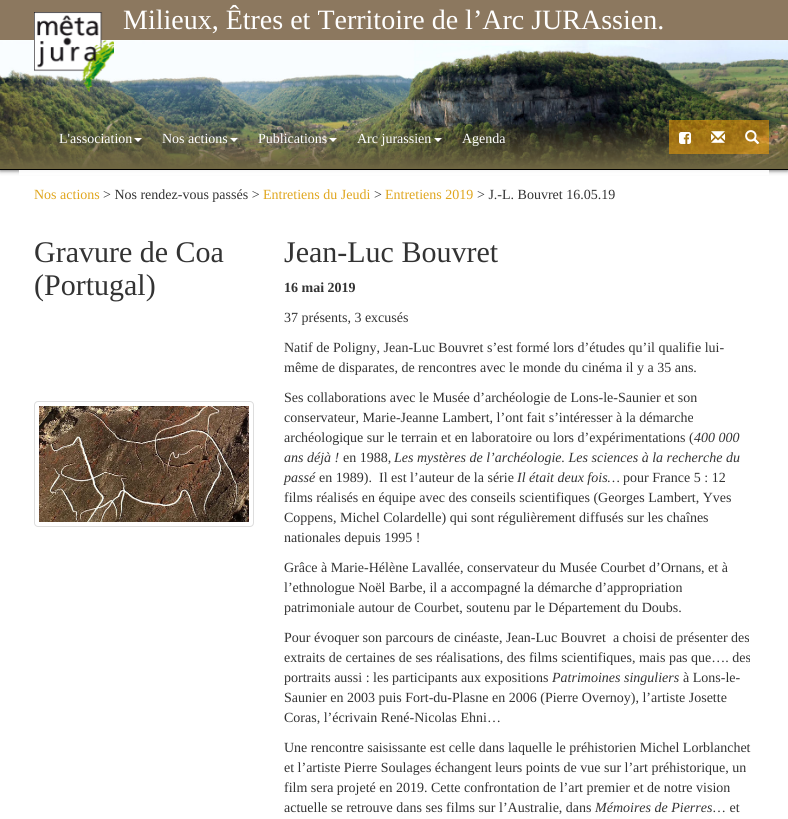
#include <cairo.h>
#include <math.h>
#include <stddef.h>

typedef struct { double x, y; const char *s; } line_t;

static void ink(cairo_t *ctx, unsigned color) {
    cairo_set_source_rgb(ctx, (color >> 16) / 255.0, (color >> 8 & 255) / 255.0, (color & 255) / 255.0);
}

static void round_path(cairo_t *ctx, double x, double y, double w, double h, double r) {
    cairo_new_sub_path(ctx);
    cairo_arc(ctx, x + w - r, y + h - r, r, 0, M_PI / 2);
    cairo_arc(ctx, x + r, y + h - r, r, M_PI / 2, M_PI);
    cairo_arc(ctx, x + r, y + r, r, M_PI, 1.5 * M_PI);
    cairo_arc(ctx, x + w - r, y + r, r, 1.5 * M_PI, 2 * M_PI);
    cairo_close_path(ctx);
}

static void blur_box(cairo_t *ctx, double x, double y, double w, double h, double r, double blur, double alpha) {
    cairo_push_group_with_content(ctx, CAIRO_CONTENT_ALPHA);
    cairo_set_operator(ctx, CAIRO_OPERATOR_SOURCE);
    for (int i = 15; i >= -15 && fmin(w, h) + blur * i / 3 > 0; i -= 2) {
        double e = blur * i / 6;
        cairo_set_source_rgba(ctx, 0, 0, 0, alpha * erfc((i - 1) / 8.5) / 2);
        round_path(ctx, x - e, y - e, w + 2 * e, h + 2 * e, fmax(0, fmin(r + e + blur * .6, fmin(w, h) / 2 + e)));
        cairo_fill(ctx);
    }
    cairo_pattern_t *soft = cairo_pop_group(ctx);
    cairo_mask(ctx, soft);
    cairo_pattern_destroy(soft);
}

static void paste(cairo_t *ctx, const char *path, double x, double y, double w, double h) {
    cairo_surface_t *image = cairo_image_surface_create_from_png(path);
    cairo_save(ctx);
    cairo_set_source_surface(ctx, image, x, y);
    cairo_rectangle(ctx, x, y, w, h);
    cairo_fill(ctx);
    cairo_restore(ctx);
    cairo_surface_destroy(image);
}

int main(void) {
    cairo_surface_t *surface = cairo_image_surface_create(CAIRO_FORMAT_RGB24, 788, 819);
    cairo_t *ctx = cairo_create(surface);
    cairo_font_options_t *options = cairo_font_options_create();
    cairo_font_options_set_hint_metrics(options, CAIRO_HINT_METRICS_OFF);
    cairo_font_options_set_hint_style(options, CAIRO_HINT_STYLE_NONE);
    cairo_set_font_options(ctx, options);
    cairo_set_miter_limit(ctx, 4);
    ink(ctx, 0xFFFFFF);
    cairo_paint(ctx);
    ink(ctx, 0x000000);
    blur_box(ctx, 0, 0, 788, 170, 0, 2.5, 0.75);
    ink(ctx, 0x8C785F);
    cairo_rectangle(ctx, 0, 0, 788, 40);
    cairo_fill(ctx);
    cairo_select_font_face(ctx, "Liberation Serif", CAIRO_FONT_SLANT_NORMAL, CAIRO_FONT_WEIGHT_NORMAL);
    cairo_set_font_size(ctx, 28);
    ink(ctx, 0xFFFFFF);
    cairo_move_to(ctx, 123, 29);
    cairo_show_text(ctx, "Milieux, Êtres et Territoire de l’Arc JURAssien.");
    paste(ctx, "media/1.png", 0, 40, 788, 129);
    paste(ctx, "media/2.png", 34, 12, 80, 80);
    ink(ctx, 0x000000);
    cairo_rectangle(ctx, 0, 169, 788, 1);
    cairo_fill(ctx);
    cairo_set_font_size(ctx, 14);
    ink(ctx, 0xFFFFFF);
    cairo_move_to(ctx, 59, 143);
    cairo_show_text(ctx, "L'association");
    cairo_new_path(ctx);
    cairo_move_to(ctx, 134, 138);
    cairo_line_to(ctx, 142, 138);
    cairo_line_to(ctx, 138, 142);
    cairo_close_path(ctx);
    cairo_fill(ctx);
    cairo_move_to(ctx, 162, 143);
    cairo_show_text(ctx, "Nos actions");
    cairo_new_path(ctx);
    cairo_move_to(ctx, 230, 138);
    cairo_line_to(ctx, 238, 138);
    cairo_line_to(ctx, 234, 142);
    cairo_close_path(ctx);
    cairo_fill(ctx);
    cairo_move_to(ctx, 258, 143);
    cairo_show_text(ctx, "Publications");
    cairo_new_path(ctx);
    cairo_move_to(ctx, 329, 138);
    cairo_line_to(ctx, 337, 138);
    cairo_line_to(ctx, 333, 142);
    cairo_close_path(ctx);
    cairo_fill(ctx);
    cairo_move_to(ctx, 357, 143);
    cairo_show_text(ctx, "Arc jurassien");
    cairo_new_path(ctx);
    cairo_move_to(ctx, 434, 138);
    cairo_line_to(ctx, 442, 138);
    cairo_line_to(ctx, 438, 142);
    cairo_close_path(ctx);
    cairo_fill(ctx);
    cairo_move_to(ctx, 462, 143);
    cairo_show_text(ctx, "Agenda");
    cairo_set_source_rgba(ctx, 1, 0.647, 0, 0.5);
    cairo_rectangle(ctx, 669, 120, 32, 34);
    cairo_fill(ctx);
    paste(ctx, "media/3.png", 679, 132, 12, 12);
    cairo_rectangle(ctx, 701, 120, 34, 34);
    cairo_fill(ctx);
    paste(ctx, "media/4.png", 711, 131, 14, 12);
    cairo_rectangle(ctx, 735, 120, 34, 34);
    cairo_fill(ctx);
    paste(ctx, "media/5.png", 745, 130, 15, 14);
    cairo_set_source_rgba(ctx, 1, 1, 1, 0.9);
    cairo_rectangle(ctx, 19, 170, 750, 5);
    cairo_fill(ctx);
    ink(ctx, 0xE0A61E);
    cairo_move_to(ctx, 34, 199);
    cairo_show_text(ctx, "Nos actions");
    ink(ctx, 0x333333);
    cairo_move_to(ctx, 103, 199);
    cairo_show_text(ctx, "> Nos rendez-vous passés >");
    ink(ctx, 0xE0A61E);
    cairo_move_to(ctx, 263, 199);
    cairo_show_text(ctx, "Entretiens du Jeudi");
    ink(ctx, 0x333333);
    cairo_move_to(ctx, 374, 199);
    cairo_show_text(ctx, ">");
    ink(ctx, 0xE0A61E);
    cairo_move_to(ctx, 385, 199);
    cairo_show_text(ctx, "Entretiens 2019");
    ink(ctx, 0x333333);
    cairo_move_to(ctx, 477, 199);
    cairo_show_text(ctx, "> J.-L. Bouvret 16.05.19");
    cairo_set_font_size(ctx, 30);
    cairo_move_to(ctx, 34, 262);
    cairo_show_text(ctx, "Gravure de Coa");
    cairo_move_to(ctx, 34, 295);
    cairo_show_text(ctx, "(Portugal)");
    round_path(ctx, 34.5, 401.5, 219, 125, 3.5);
    ink(ctx, 0xDDDDDD);
    cairo_set_line_width(ctx, 1);
    cairo_stroke(ctx);
    paste(ctx, "media/6.png", 39, 406, 210, 116);
    ink(ctx, 0x333333);
    cairo_move_to(ctx, 284, 262);
    cairo_show_text(ctx, "Jean-Luc Bouvret");
    cairo_select_font_face(ctx, "Liberation Serif", CAIRO_FONT_SLANT_NORMAL, CAIRO_FONT_WEIGHT_BOLD);
    cairo_set_font_size(ctx, 14);
    cairo_move_to(ctx, 284, 292);
    cairo_show_text(ctx, "16 mai 2019");
    cairo_select_font_face(ctx, "Liberation Serif", CAIRO_FONT_SLANT_NORMAL, CAIRO_FONT_WEIGHT_NORMAL);
    {
        static const line_t items[] = {
            {284, 322, "37 présents, 3 excusés"},
            {284, 352, "Natif de Poligny, Jean-Luc Bouvret s’est formé lors d’études qu’il qualifie lui-"},
            {284, 372, "même de disparates, de rencontres avec le monde du cinéma il y a 35 ans."},
            {284, 402, "Ses collaborations avec le Musée d’archéologie de Lons-le-Saunier et son"},
            {284, 422, "conservateur, Marie-Jeanne Lambert, l’ont fait s’intéresser à la démarche"},
            {284, 442, "archéologique sur le terrain et en laboratoire ou lors d’expérimentations ("},
        };
        for (size_t i = 0; i < sizeof items / sizeof *items; i++) {
            cairo_move_to(ctx, items[i].x, items[i].y);
            cairo_show_text(ctx, items[i].s);
        }
    }
    cairo_select_font_face(ctx, "Liberation Serif", CAIRO_FONT_SLANT_ITALIC, CAIRO_FONT_WEIGHT_NORMAL);
    cairo_move_to(ctx, 694, 442);
    cairo_show_text(ctx, "400 000");
    cairo_move_to(ctx, 284, 462);
    cairo_show_text(ctx, "ans déjà !");
    cairo_select_font_face(ctx, "Liberation Serif", CAIRO_FONT_SLANT_NORMAL, CAIRO_FONT_WEIGHT_NORMAL);
    cairo_move_to(ctx, 343, 462);
    cairo_show_text(ctx, "en 1988,");
    cairo_select_font_face(ctx, "Liberation Serif", CAIRO_FONT_SLANT_ITALIC, CAIRO_FONT_WEIGHT_NORMAL);
    cairo_move_to(ctx, 394, 462);
    cairo_show_text(ctx, "Les mystères de l’archéologie. Les sciences à la recherche du");
    cairo_move_to(ctx, 284, 482);
    cairo_show_text(ctx, "passé");
    cairo_select_font_face(ctx, "Liberation Serif", CAIRO_FONT_SLANT_NORMAL, CAIRO_FONT_WEIGHT_NORMAL);
    cairo_move_to(ctx, 319, 482);
    cairo_show_text(ctx, "en 1989).");
    cairo_move_to(ctx, 379, 482);
    cairo_show_text(ctx, "Il est l’auteur de la série");
    cairo_select_font_face(ctx, "Liberation Serif", CAIRO_FONT_SLANT_ITALIC, CAIRO_FONT_WEIGHT_NORMAL);
    cairo_move_to(ctx, 517, 482);
    cairo_show_text(ctx, "Il était deux fois…");
    cairo_select_font_face(ctx, "Liberation Serif", CAIRO_FONT_SLANT_NORMAL, CAIRO_FONT_WEIGHT_NORMAL);
    {
        static const line_t items[] = {
            {623, 482, "pour France 5 : 12"},
            {284, 502, "films réalisés en équipe avec des conseils scientifiques (Georges Lambert, Yves"},
            {284, 522, "Coppens, Michel Colardelle) qui sont régulièrement diffusés sur les chaînes"},
            {284, 542, "nationales depuis 1995 !"},
            {284, 572, "Grâce à Marie-Hélène Lavallée, conservateur du Musée Courbet d’Ornans, et à"},
            {284, 592, "l’ethnologue Noël Barbe, il a accompagné la démarche d’appropriation"},
            {284, 612, "patrimoniale autour de Courbet, soutenu par le Département du Doubs."},
            {284, 642, "Pour évoquer son parcours de cinéaste, Jean-Luc Bouvret  a choisi de présenter des"},
            {284, 662, "extraits de certaines de ses réalisations, des films scientifiques, mais pas que…. des"},
            {284, 682, "portraits aussi : les participants aux expositions"},
        };
        for (size_t i = 0; i < sizeof items / sizeof *items; i++) {
            cairo_move_to(ctx, items[i].x, items[i].y);
            cairo_show_text(ctx, items[i].s);
        }
    }
    cairo_select_font_face(ctx, "Liberation Serif", CAIRO_FONT_SLANT_ITALIC, CAIRO_FONT_WEIGHT_NORMAL);
    cairo_move_to(ctx, 552, 682);
    cairo_show_text(ctx, "Patrimoines singuliers");
    cairo_select_font_face(ctx, "Liberation Serif", CAIRO_FONT_SLANT_NORMAL, CAIRO_FONT_WEIGHT_NORMAL);
    {
        static const line_t items[] = {
            {683, 682, "à Lons-le-"},
            {284, 702, "Saunier en 2003 puis Fort-du-Plasne en 2006 (Pierre Overnoy), l’artiste Josette"},
            {284, 722, "Coras, l’écrivain René-Nicolas Ehni…"},
            {284, 752, "Une rencontre saisissante est celle dans laquelle le préhistorien Michel Lorblanchet"},
            {284, 772, "et l’artiste Pierre Soulages échangent leurs points de vue sur l’art préhistorique, un"},
            {284, 792, "film sera projeté en 2019. Cette confrontation de l’art premier et de notre vision"},
            {284, 812, "actuelle se retrouve dans ses films sur l’Australie, dans"},
        };
        for (size_t i = 0; i < sizeof items / sizeof *items; i++) {
            cairo_move_to(ctx, items[i].x, items[i].y);
            cairo_show_text(ctx, items[i].s);
        }
    }
    cairo_select_font_face(ctx, "Liberation Serif", CAIRO_FONT_SLANT_ITALIC, CAIRO_FONT_WEIGHT_NORMAL);
    cairo_move_to(ctx, 595, 812);
    cairo_show_text(ctx, "Mémoires de Pierres");
    cairo_select_font_face(ctx, "Liberation Serif", CAIRO_FONT_SLANT_NORMAL, CAIRO_FONT_WEIGHT_NORMAL);
    cairo_move_to(ctx, 712, 812);
    cairo_show_text(ctx, "… et");
    cairo_surface_write_to_png(surface, "image.png");
    cairo_font_options_destroy(options);
    cairo_destroy(ctx);
    cairo_surface_destroy(surface);
    return 0;
}
